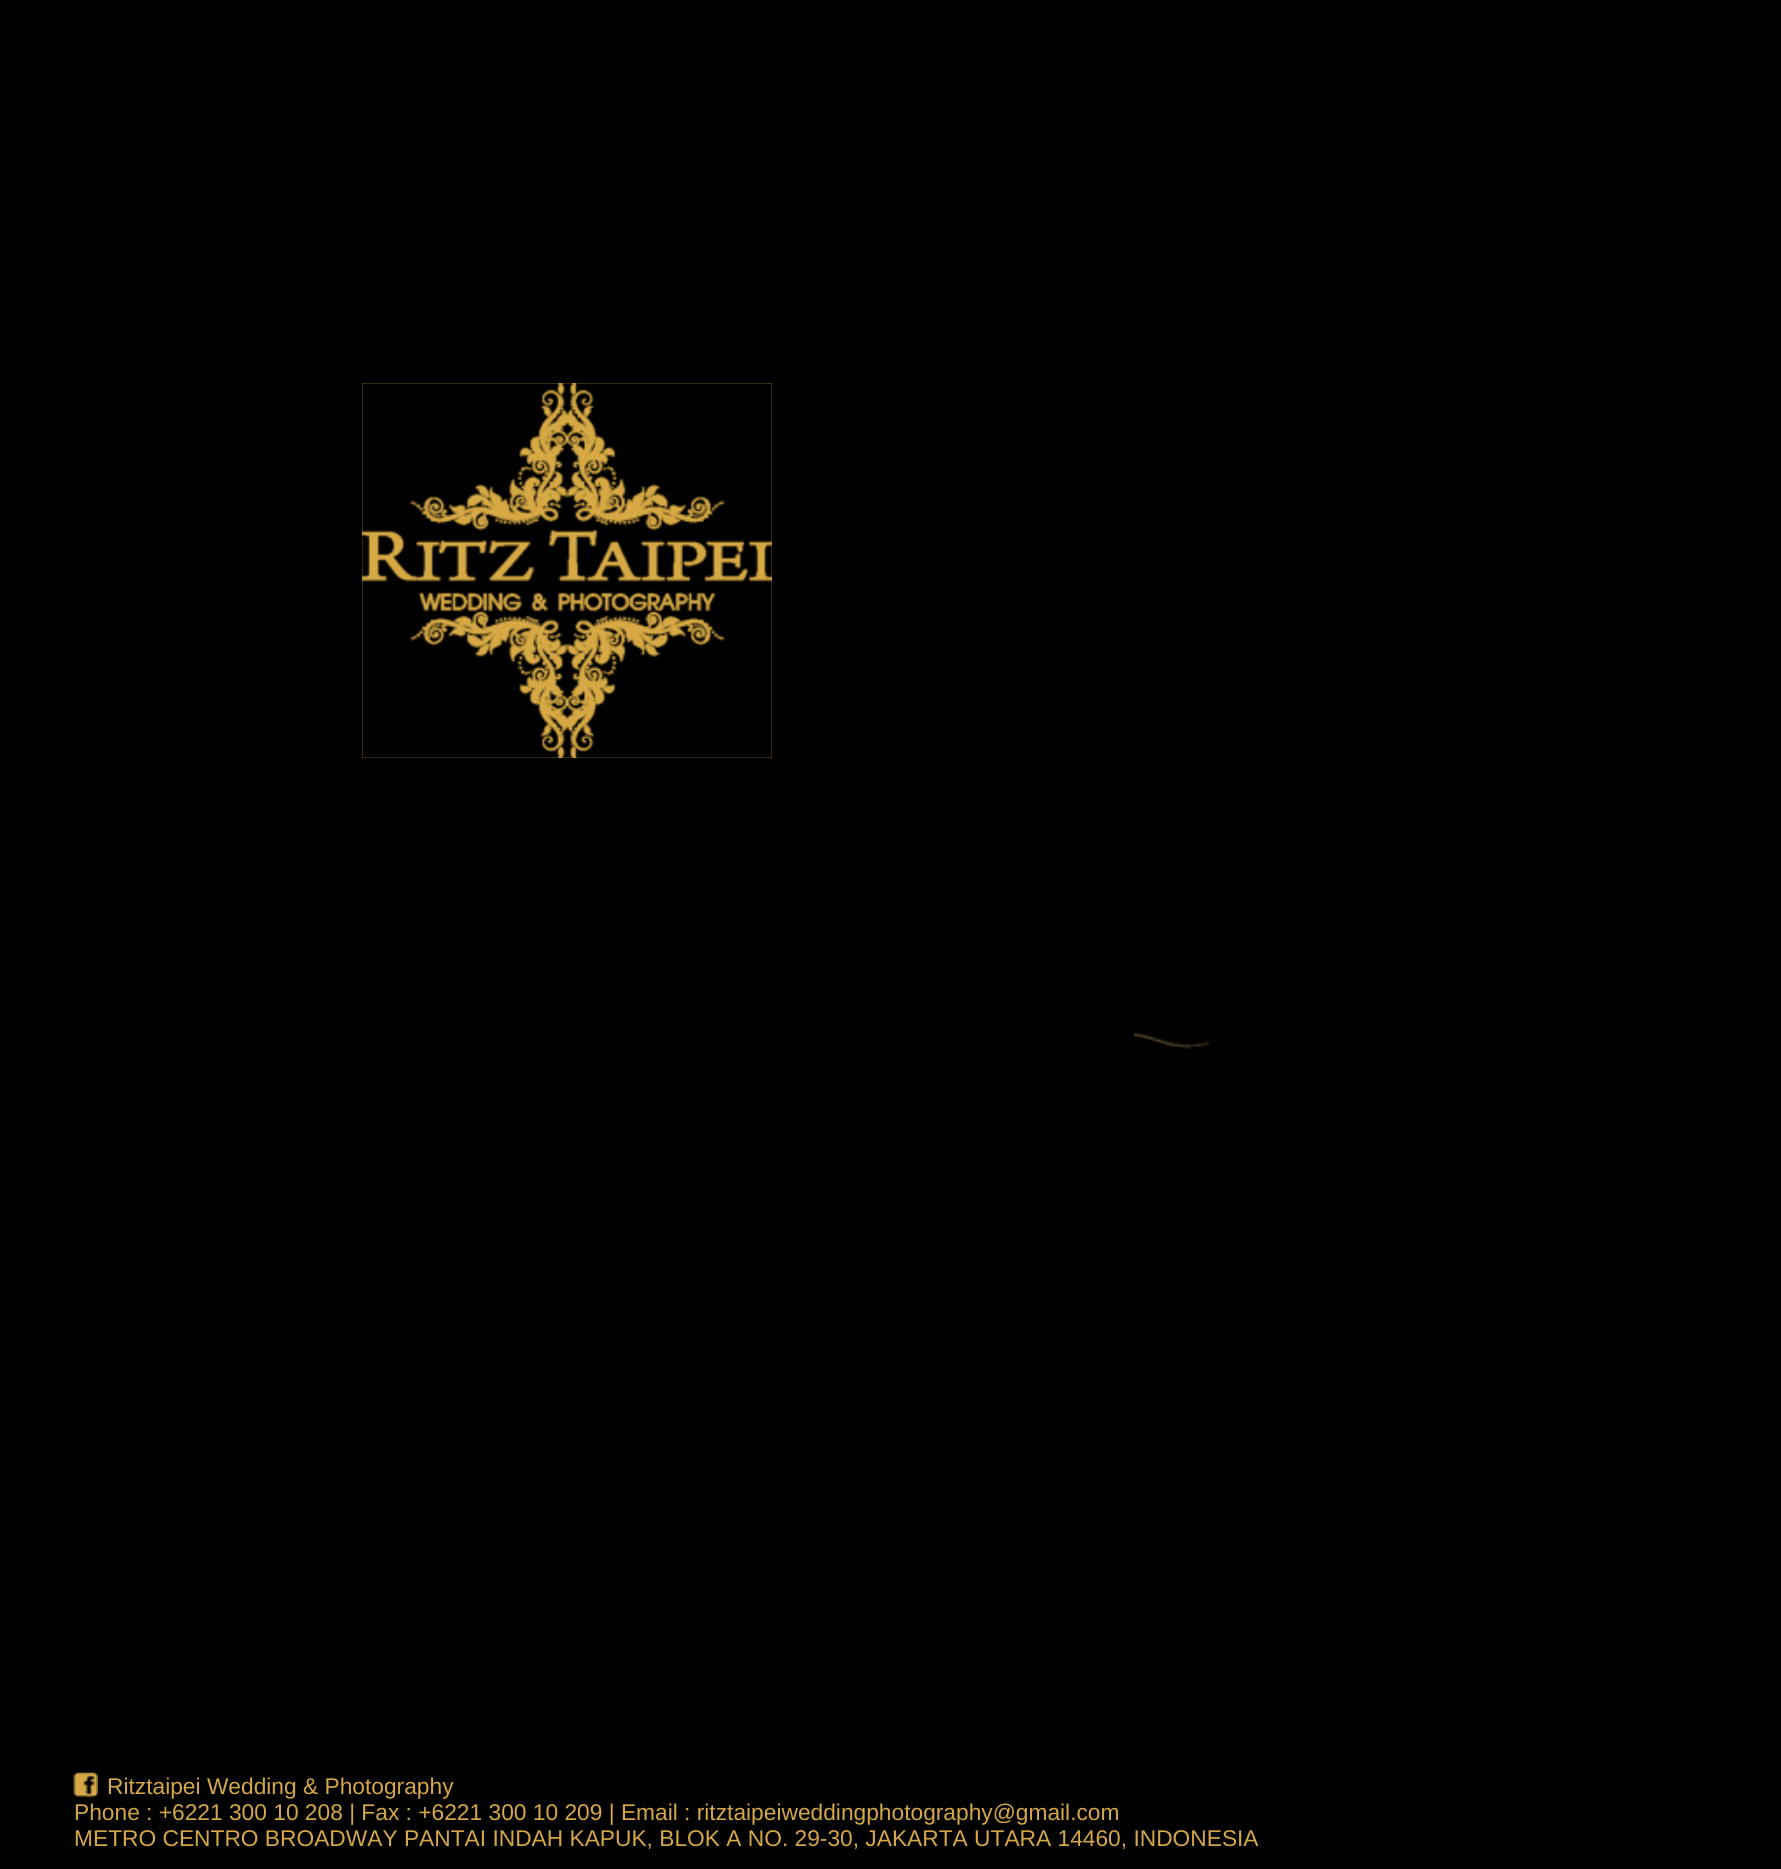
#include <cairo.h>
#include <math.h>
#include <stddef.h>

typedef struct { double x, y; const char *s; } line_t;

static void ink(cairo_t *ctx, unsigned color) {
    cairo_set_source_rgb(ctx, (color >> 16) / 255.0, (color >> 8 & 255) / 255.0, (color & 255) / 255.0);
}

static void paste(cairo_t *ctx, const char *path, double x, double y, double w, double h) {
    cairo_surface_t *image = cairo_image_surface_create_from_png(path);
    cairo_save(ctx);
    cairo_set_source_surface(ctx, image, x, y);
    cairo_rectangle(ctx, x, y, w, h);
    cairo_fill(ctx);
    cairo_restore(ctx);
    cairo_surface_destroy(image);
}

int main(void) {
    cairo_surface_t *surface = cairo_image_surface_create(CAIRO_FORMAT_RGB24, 1781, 1869);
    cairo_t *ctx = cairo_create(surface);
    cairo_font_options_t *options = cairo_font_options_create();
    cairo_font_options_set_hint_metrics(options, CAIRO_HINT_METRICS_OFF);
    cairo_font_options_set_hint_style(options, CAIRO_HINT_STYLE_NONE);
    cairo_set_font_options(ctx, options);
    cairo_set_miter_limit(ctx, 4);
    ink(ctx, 0x000000);
    cairo_paint(ctx);
    ink(ctx, 0xD6A944);
    cairo_rectangle(ctx, 362, 383, 410, 375);
    cairo_fill(ctx);
    paste(ctx, "media/1.png", 362, 383, 410, 375);
    paste(ctx, "media/2.png", 1134, 175, 87, 924);
    paste(ctx, "media/3.png", 73, 1772, 25, 26);
    cairo_select_font_face(ctx, "Liberation Sans", CAIRO_FONT_SLANT_NORMAL, CAIRO_FONT_WEIGHT_NORMAL);
    cairo_set_font_size(ctx, 22.75);
    ink(ctx, 0xD4A749);
    {
        static const line_t items[] = {
            {107, 1794, "Ritztaipei Wedding & Photography"},
            {74, 1820, "Phone : +6221 300 10 208 | Fax : +6221 300 10 209 | Email : ritztaipeiweddingphotography@gmail.com"},
            {74, 1846, "METRO CENTRO BROADWAY PANTAI INDAH KAPUK, BLOK A NO. 29-30, JAKARTA UTARA 14460, INDONESIA"},
        };
        for (size_t i = 0; i < sizeof items / sizeof *items; i++) {
            cairo_move_to(ctx, items[i].x, items[i].y);
            cairo_show_text(ctx, items[i].s);
        }
    }
    cairo_surface_write_to_png(surface, "image.png");
    cairo_font_options_destroy(options);
    cairo_destroy(ctx);
    cairo_surface_destroy(surface);
    return 0;
}
